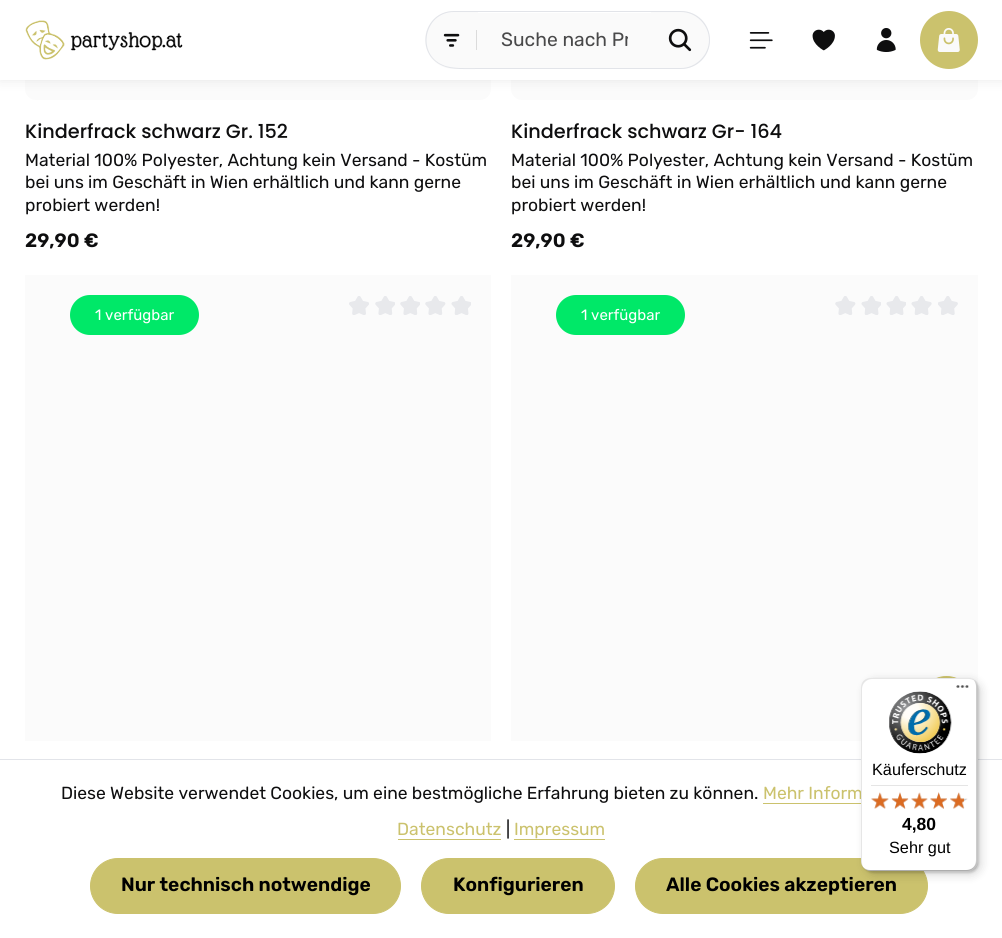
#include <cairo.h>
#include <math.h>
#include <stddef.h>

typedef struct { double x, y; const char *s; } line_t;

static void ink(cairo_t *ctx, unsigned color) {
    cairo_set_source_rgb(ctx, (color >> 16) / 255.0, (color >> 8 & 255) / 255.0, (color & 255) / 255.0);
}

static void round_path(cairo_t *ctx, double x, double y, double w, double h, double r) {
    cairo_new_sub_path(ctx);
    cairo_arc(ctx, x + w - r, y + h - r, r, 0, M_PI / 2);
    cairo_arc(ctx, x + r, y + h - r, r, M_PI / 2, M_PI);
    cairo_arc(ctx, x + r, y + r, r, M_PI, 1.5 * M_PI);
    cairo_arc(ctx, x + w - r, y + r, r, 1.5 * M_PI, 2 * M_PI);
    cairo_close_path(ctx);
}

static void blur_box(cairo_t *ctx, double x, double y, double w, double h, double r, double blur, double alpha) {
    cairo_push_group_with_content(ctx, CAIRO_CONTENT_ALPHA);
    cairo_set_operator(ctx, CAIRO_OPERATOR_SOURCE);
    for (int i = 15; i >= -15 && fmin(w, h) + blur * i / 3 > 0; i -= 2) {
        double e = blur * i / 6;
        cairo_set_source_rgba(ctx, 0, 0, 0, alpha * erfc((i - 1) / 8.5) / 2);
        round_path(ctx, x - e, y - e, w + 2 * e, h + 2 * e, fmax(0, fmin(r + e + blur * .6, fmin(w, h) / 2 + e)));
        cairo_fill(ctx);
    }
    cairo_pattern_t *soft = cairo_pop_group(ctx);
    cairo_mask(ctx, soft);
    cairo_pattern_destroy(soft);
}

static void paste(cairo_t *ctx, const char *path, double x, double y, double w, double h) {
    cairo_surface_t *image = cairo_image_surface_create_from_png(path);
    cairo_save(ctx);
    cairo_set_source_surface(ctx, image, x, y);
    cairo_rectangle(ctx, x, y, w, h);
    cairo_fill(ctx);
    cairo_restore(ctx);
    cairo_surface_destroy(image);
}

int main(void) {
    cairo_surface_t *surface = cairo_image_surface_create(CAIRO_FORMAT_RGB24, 1002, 938);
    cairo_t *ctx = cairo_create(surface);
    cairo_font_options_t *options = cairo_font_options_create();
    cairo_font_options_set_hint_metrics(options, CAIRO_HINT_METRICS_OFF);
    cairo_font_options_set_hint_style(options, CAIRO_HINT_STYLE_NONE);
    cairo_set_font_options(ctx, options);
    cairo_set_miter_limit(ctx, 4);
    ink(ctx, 0xFFFFFF);
    cairo_paint(ctx);
    ink(ctx, 0xFBFBFB);
    round_path(ctx, 25, -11, 466, 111, 11);
    cairo_fill(ctx);
    round_path(ctx, 511, -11, 467, 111, 11);
    cairo_fill(ctx);
    ink(ctx, 0x16181D);
    blur_box(ctx, 0, 0, 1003, 80, 0, 6, 0.1);
    ink(ctx, 0xFFFFFF);
    cairo_rectangle(ctx, 0, 0, 1002, 80);
    cairo_fill(ctx);
    paste(ctx, "media/1.png", 25, 20, 158, 40);
    ink(ctx, 0xE2E4E9);
    cairo_rectangle(ctx, 476, 11, 177, 1);
    cairo_fill(ctx);
    cairo_rectangle(ctx, 476, 68, 177, 1);
    cairo_fill(ctx);
    ink(ctx, 0xFAFAFA);
    cairo_new_path(ctx);
    cairo_move_to(ctx, 454, 11);
    cairo_line_to(ctx, 478, 11);
    cairo_line_to(ctx, 478, 69);
    cairo_line_to(ctx, 454, 69);
    cairo_curve_to(ctx, 438, 69, 425, 56, 425, 40);
    cairo_curve_to(ctx, 425, 24, 438, 11, 454, 11);
    cairo_close_path(ctx);
    cairo_fill(ctx);
    ink(ctx, 0xE2E4E9);
    cairo_set_fill_rule(ctx, CAIRO_FILL_RULE_EVEN_ODD);
    cairo_new_path(ctx);
    cairo_move_to(ctx, 454, 11);
    cairo_line_to(ctx, 478, 11);
    cairo_line_to(ctx, 478, 69);
    cairo_curve_to(ctx, 467, 69, 452, 70, 443, 66);
    cairo_curve_to(ctx, 414, 54, 423, 11, 454, 11);
    cairo_close_path(ctx);
    cairo_move_to(ctx, 454, 12);
    cairo_line_to(ctx, 478, 12);
    cairo_line_to(ctx, 478, 68);
    cairo_curve_to(ctx, 468, 68, 452, 69, 443, 65);
    cairo_curve_to(ctx, 416, 54, 424, 12, 454, 12);
    cairo_close_path(ctx);
    cairo_fill(ctx);
    paste(ctx, "media/2.png", 443, 33, 17, 14);
    ink(ctx, 0xFAFAFA);
    cairo_new_path(ctx);
    cairo_move_to(ctx, 651, 11);
    cairo_line_to(ctx, 681, 11);
    cairo_curve_to(ctx, 697, 11, 710, 24, 710, 40);
    cairo_curve_to(ctx, 710, 56, 697, 69, 681, 69);
    cairo_line_to(ctx, 651, 69);
    cairo_close_path(ctx);
    cairo_fill(ctx);
    ink(ctx, 0xE2E4E9);
    cairo_new_path(ctx);
    cairo_move_to(ctx, 651, 11);
    cairo_line_to(ctx, 681, 11);
    cairo_curve_to(ctx, 697, 11, 710, 24, 710, 40);
    cairo_curve_to(ctx, 710, 56, 697, 69, 681, 69);
    cairo_line_to(ctx, 651, 69);
    cairo_close_path(ctx);
    cairo_move_to(ctx, 651, 12);
    cairo_line_to(ctx, 681, 12);
    cairo_curve_to(ctx, 696, 12, 709, 25, 709, 40);
    cairo_curve_to(ctx, 709, 55, 696, 68, 681, 68);
    cairo_line_to(ctx, 651, 68);
    cairo_close_path(ctx);
    cairo_fill(ctx);
    paste(ctx, "media/3.png", 668, 28, 24, 24);
    ink(ctx, 0xDBDBDB);
    cairo_rectangle(ctx, 476, 30, 1, 20);
    cairo_fill(ctx);
    ink(ctx, 0xFAFAFA);
    cairo_rectangle(ctx, 478, 13, 173, 55);
    cairo_fill(ctx);
    cairo_save(ctx);
    cairo_set_fill_rule(ctx, CAIRO_FILL_RULE_WINDING);
    cairo_rectangle(ctx, 501, 28, 127, 22);
    cairo_clip(ctx);
    cairo_select_font_face(ctx, "Rubik Light", CAIRO_FONT_SLANT_NORMAL, CAIRO_FONT_WEIGHT_NORMAL);
    cairo_set_font_size(ctx, 19.25);
    ink(ctx, 0x49494A);
    cairo_move_to(ctx, 501, 46);
    cairo_show_text(ctx, "Suche nach Pr");
    cairo_restore(ctx);
    paste(ctx, "media/4.png", 749, 32, 24, 17);
    paste(ctx, "media/5.png", 812, 29, 23, 22);
    paste(ctx, "media/6.png", 876, 28, 20, 24);
    ink(ctx, 0xCBC26D);
    cairo_arc(ctx, 949, 40, 29, 0, 2 * M_PI);
    cairo_fill(ctx);
    paste(ctx, "media/7.png", 937, 28, 23, 24);
    cairo_select_font_face(ctx, "Poppins Medium", CAIRO_FONT_SLANT_NORMAL, CAIRO_FONT_WEIGHT_NORMAL);
    cairo_set_font_size(ctx, 19.25);
    ink(ctx, 0x0E0E0F);
    cairo_move_to(ctx, 25, 138);
    cairo_show_text(ctx, "Kinderfrack schwarz Gr. 152");
    cairo_select_font_face(ctx, "Rubik Light", CAIRO_FONT_SLANT_NORMAL, CAIRO_FONT_WEIGHT_NORMAL);
    cairo_set_font_size(ctx, 17.5);
    {
        static const line_t items[] = {
            {25, 166, "Material 100% Polyester, Achtung kein Versand - Kostüm"},
            {25, 188, "bei uns im Geschäft in Wien erhältlich und kann gerne"},
            {25, 211, "probiert werden!"},
        };
        for (size_t i = 0; i < sizeof items / sizeof *items; i++) {
            cairo_move_to(ctx, items[i].x, items[i].y);
            cairo_show_text(ctx, items[i].s);
        }
    }
    cairo_select_font_face(ctx, "Rubik SemiBold", CAIRO_FONT_SLANT_NORMAL, CAIRO_FONT_WEIGHT_NORMAL);
    cairo_set_font_size(ctx, 19.25);
    cairo_move_to(ctx, 25, 247);
    cairo_show_text(ctx, "29,90 €");
    cairo_select_font_face(ctx, "Poppins Medium", CAIRO_FONT_SLANT_NORMAL, CAIRO_FONT_WEIGHT_NORMAL);
    cairo_move_to(ctx, 511, 138);
    cairo_show_text(ctx, "Kinderfrack schwarz Gr- 164");
    cairo_select_font_face(ctx, "Rubik Light", CAIRO_FONT_SLANT_NORMAL, CAIRO_FONT_WEIGHT_NORMAL);
    cairo_set_font_size(ctx, 17.5);
    {
        static const line_t items[] = {
            {511, 166, "Material 100% Polyester, Achtung kein Versand - Kostüm"},
            {511, 188, "bei uns im Geschäft in Wien erhältlich und kann gerne"},
            {511, 211, "probiert werden!"},
        };
        for (size_t i = 0; i < sizeof items / sizeof *items; i++) {
            cairo_move_to(ctx, items[i].x, items[i].y);
            cairo_show_text(ctx, items[i].s);
        }
    }
    cairo_select_font_face(ctx, "Rubik SemiBold", CAIRO_FONT_SLANT_NORMAL, CAIRO_FONT_WEIGHT_NORMAL);
    cairo_set_font_size(ctx, 19.25);
    cairo_move_to(ctx, 511, 247);
    cairo_show_text(ctx, "29,90 €");
    paste(ctx, "media/8.png", 349, 296, 20, 19);
    paste(ctx, "media/9.png", 375, 296, 20, 19);
    paste(ctx, "media/9.png", 400, 296, 20, 19);
    paste(ctx, "media/10.png", 425, 296, 21, 19);
    paste(ctx, "media/11.png", 451, 296, 20, 19);
    cairo_set_source_rgba(ctx, 0.435, 0.435, 0.435, 0.03);
    cairo_rectangle(ctx, 25, 275, 466, 466);
    cairo_fill(ctx);
    ink(ctx, 0x00E868);
    round_path(ctx, 70, 295, 129, 40, 20);
    cairo_fill(ctx);
    cairo_select_font_face(ctx, "Rubik Light", CAIRO_FONT_SLANT_NORMAL, CAIRO_FONT_WEIGHT_NORMAL);
    cairo_set_font_size(ctx, 15);
    ink(ctx, 0xFFFFFF);
    cairo_move_to(ctx, 95, 320);
    cairo_show_text(ctx, "1 verfügbar");
    paste(ctx, "media/10.png", 835, 296, 21, 19);
    paste(ctx, "media/11.png", 861, 296, 20, 19);
    paste(ctx, "media/11.png", 886, 296, 20, 19);
    paste(ctx, "media/12.png", 911, 296, 21, 19);
    paste(ctx, "media/13.png", 938, 296, 20, 19);
    cairo_set_source_rgba(ctx, 0.435, 0.435, 0.435, 0.03);
    cairo_rectangle(ctx, 511, 275, 467, 466);
    cairo_fill(ctx);
    ink(ctx, 0x00E868);
    round_path(ctx, 556, 295, 129, 40, 20);
    cairo_fill(ctx);
    ink(ctx, 0xFFFFFF);
    cairo_move_to(ctx, 581, 320);
    cairo_show_text(ctx, "1 verfügbar");
    ink(ctx, 0xCBC26D);
    cairo_new_path(ctx);
    cairo_arc(ctx, 946.5, 702.5, 26, 0, 2 * M_PI);
    cairo_fill_preserve(ctx);
    cairo_set_line_width(ctx, 1);
    cairo_stroke(ctx);
    ink(ctx, 0xE2E4E9);
    cairo_rectangle(ctx, 0, 759, 1002, 1);
    cairo_fill(ctx);
    cairo_set_font_size(ctx, 17.5);
    ink(ctx, 0x0E0E0F);
    cairo_move_to(ctx, 61, 799);
    cairo_show_text(ctx, "Diese Website verwendet Cookies, um eine bestmögliche Erfahrung bieten zu können.");
    ink(ctx, 0xCBC26D);
    cairo_move_to(ctx, 763, 799);
    cairo_show_text(ctx, "Mehr Inform");
    cairo_rectangle(ctx, 763, 803, 98, 1);
    cairo_fill(ctx);
    cairo_move_to(ctx, 397, 835);
    cairo_show_text(ctx, "Datenschutz");
    cairo_rectangle(ctx, 398, 839, 103, 1);
    cairo_fill(ctx);
    ink(ctx, 0x0E0E0F);
    cairo_move_to(ctx, 506, 835);
    cairo_show_text(ctx, "|");
    ink(ctx, 0xCBC26D);
    cairo_move_to(ctx, 514, 835);
    cairo_show_text(ctx, "Impressum");
    cairo_rectangle(ctx, 514, 839, 91, 1);
    cairo_fill(ctx);
    round_path(ctx, 90.5, 858.5, 310, 55, 27.5);
    cairo_fill_preserve(ctx);
    cairo_stroke(ctx);
    cairo_select_font_face(ctx, "Rubik SemiBold", CAIRO_FONT_SLANT_NORMAL, CAIRO_FONT_WEIGHT_NORMAL);
    cairo_set_font_size(ctx, 19.25);
    ink(ctx, 0x000000);
    cairo_move_to(ctx, 121, 891);
    cairo_show_text(ctx, "Nur technisch notwendige");
    ink(ctx, 0xCBC26D);
    round_path(ctx, 421.5, 858.5, 193, 55, 27.5);
    cairo_fill_preserve(ctx);
    cairo_stroke(ctx);
    ink(ctx, 0x000000);
    cairo_move_to(ctx, 453, 891);
    cairo_show_text(ctx, "Konfigurieren");
    ink(ctx, 0xCBC26D);
    round_path(ctx, 635.5, 858.5, 292, 55, 27.5);
    cairo_fill_preserve(ctx);
    cairo_stroke(ctx);
    ink(ctx, 0x000000);
    cairo_move_to(ctx, 666, 891);
    cairo_show_text(ctx, "Alle Cookies akzeptieren");
    ink(ctx, 0x000000);
    blur_box(ctx, 865, 681, 116, 194, 10, 5, 0.15);
    blur_box(ctx, 863, 679, 116, 194, 10, 1, 0.15);
    ink(ctx, 0xFFFFFF);
    round_path(ctx, 861, 678, 117, 193, 10);
    cairo_fill(ctx);
    cairo_set_source_rgba(ctx, 0, 0, 0, 0.1);
    cairo_set_fill_rule(ctx, CAIRO_FILL_RULE_WINDING);
    cairo_new_path(ctx);
    cairo_move_to(ctx, 872, 679);
    cairo_line_to(ctx, 969, 679);
    cairo_curve_to(ctx, 971, 679, 974, 680, 976, 682);
    cairo_curve_to(ctx, 974, 679, 971, 678, 968, 678);
    cairo_line_to(ctx, 871, 678);
    cairo_curve_to(ctx, 865, 678, 861, 682, 861, 688);
    cairo_line_to(ctx, 861, 861);
    cairo_curve_to(ctx, 861, 864, 862, 867, 864, 869);
    cairo_curve_to(ctx, 863, 867, 862, 865, 862, 862);
    cairo_line_to(ctx, 862, 689);
    cairo_curve_to(ctx, 862, 683, 867, 679, 872, 679);
    cairo_close_path(ctx);
    cairo_fill(ctx);
    cairo_set_source_rgba(ctx, 0, 0, 0, 0.2);
    cairo_new_path(ctx);
    cairo_move_to(ctx, 865, 869);
    cairo_curve_to(ctx, 866, 870, 869, 871, 871, 871);
    cairo_line_to(ctx, 968, 871);
    cairo_curve_to(ctx, 974, 871, 978, 867, 978, 861);
    cairo_line_to(ctx, 978, 688);
    cairo_curve_to(ctx, 978, 685, 976, 682, 974, 680);
    cairo_curve_to(ctx, 975, 682, 976, 684, 976, 686);
    cairo_line_to(ctx, 976, 860);
    cairo_curve_to(ctx, 976, 866, 972, 870, 966, 870);
    cairo_line_to(ctx, 870, 870);
    cairo_curve_to(ctx, 868, 870, 866, 870, 865, 869);
    cairo_close_path(ctx);
    cairo_fill(ctx);
    cairo_set_source_rgba(ctx, 0.196, 0.196, 0.196, 0.2);
    cairo_new_path(ctx);
    cairo_move_to(ctx, 863, 867);
    cairo_curve_to(ctx, 865, 870, 868, 871, 871, 871);
    cairo_line_to(ctx, 968, 871);
    cairo_curve_to(ctx, 974, 871, 978, 867, 978, 861);
    cairo_line_to(ctx, 978, 688);
    cairo_curve_to(ctx, 978, 685, 977, 682, 975, 680);
    cairo_curve_to(ctx, 976, 682, 977, 684, 977, 687);
    cairo_line_to(ctx, 977, 860);
    cairo_curve_to(ctx, 977, 866, 972, 870, 967, 870);
    cairo_line_to(ctx, 870, 870);
    cairo_curve_to(ctx, 868, 870, 865, 869, 863, 867);
    cairo_close_path(ctx);
    cairo_fill(ctx);
    cairo_set_source_rgba(ctx, 1, 1, 1, 0.3);
    cairo_set_fill_rule(ctx, CAIRO_FILL_RULE_EVEN_ODD);
    cairo_new_path(ctx);
    cairo_move_to(ctx, 861, 861);
    cairo_curve_to(ctx, 861, 864, 862, 867, 865, 869);
    cairo_curve_to(ctx, 862, 867, 861, 864, 861, 861);
    cairo_close_path(ctx);
    cairo_move_to(ctx, 967, 871);
    cairo_line_to(ctx, 968, 871);
    cairo_curve_to(ctx, 974, 871, 978, 867, 978, 861);
    cairo_line_to(ctx, 978, 688);
    cairo_curve_to(ctx, 978, 685, 977, 682, 975, 680);
    cairo_curve_to(ctx, 976, 682, 977, 684, 977, 687);
    cairo_line_to(ctx, 977, 861);
    cairo_curve_to(ctx, 977, 866, 972, 871, 967, 871);
    cairo_close_path(ctx);
    cairo_fill(ctx);
    paste(ctx, "media/14.png", 956, 685, 13, 3);
    paste(ctx, "media/15.png", 889, 691, 63, 63);
    cairo_select_font_face(ctx, "Liberation Sans", CAIRO_FONT_SLANT_NORMAL, CAIRO_FONT_WEIGHT_NORMAL);
    cairo_set_font_size(ctx, 16.25);
    ink(ctx, 0x000000);
    cairo_move_to(ctx, 872, 775);
    cairo_show_text(ctx, "Käuferschutz");
    ink(ctx, 0xE5E5E5);
    cairo_rectangle(ctx, 871, 785, 97, 1);
    cairo_fill(ctx);
    paste(ctx, "media/16.png", 871, 793, 18, 15);
    paste(ctx, "media/17.png", 892, 792, 16, 17);
    paste(ctx, "media/18.png", 911, 793, 17, 16);
    paste(ctx, "media/19.png", 930, 792, 17, 17);
    paste(ctx, "media/20.png", 950, 793, 18, 16);
    paste(ctx, "media/21.png", 871, 792, 18, 17);
    paste(ctx, "media/22.png", 891, 792, 18, 17);
    paste(ctx, "media/23.png", 911, 792, 17, 17);
    paste(ctx, "media/24.png", 930, 792, 17, 17);
    paste(ctx, "media/25.png", 950, 792, 14, 17);
    cairo_select_font_face(ctx, "Liberation Sans", CAIRO_FONT_SLANT_NORMAL, CAIRO_FONT_WEIGHT_BOLD);
    cairo_set_font_size(ctx, 17.5);
    ink(ctx, 0x000000);
    cairo_move_to(ctx, 902, 830);
    cairo_show_text(ctx, "4,80");
    cairo_select_font_face(ctx, "Liberation Sans", CAIRO_FONT_SLANT_NORMAL, CAIRO_FONT_WEIGHT_NORMAL);
    cairo_set_font_size(ctx, 16.25);
    cairo_move_to(ctx, 889, 853);
    cairo_show_text(ctx, "Sehr gut");
    cairo_surface_write_to_png(surface, "image.png");
    cairo_font_options_destroy(options);
    cairo_destroy(ctx);
    cairo_surface_destroy(surface);
    return 0;
}
